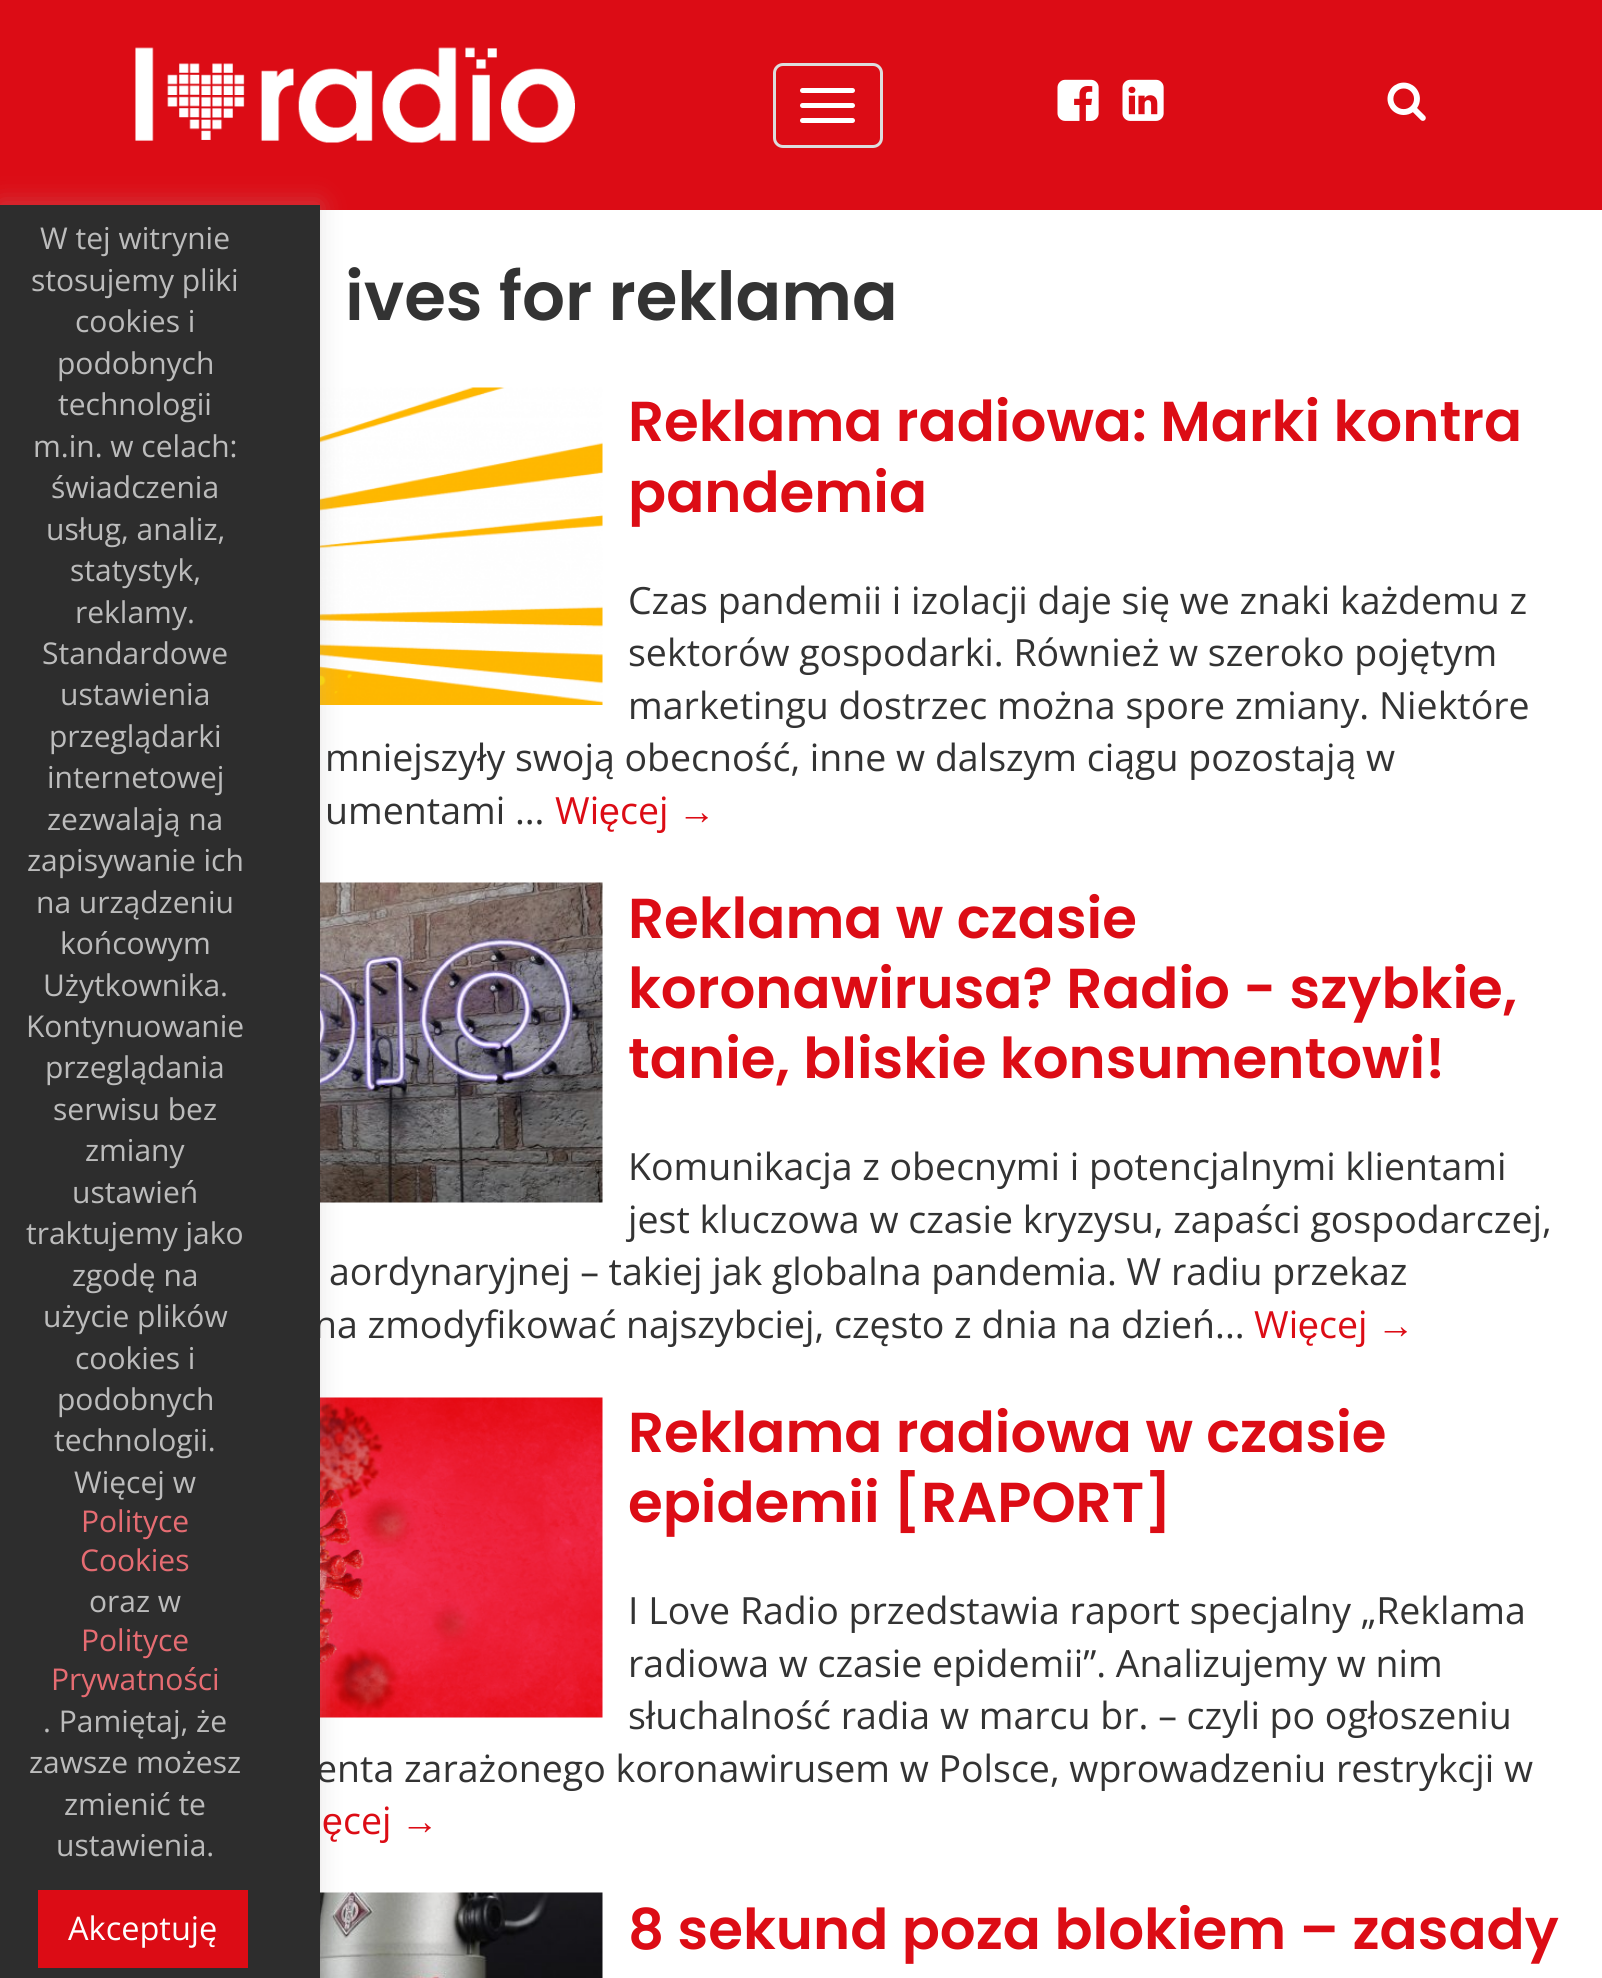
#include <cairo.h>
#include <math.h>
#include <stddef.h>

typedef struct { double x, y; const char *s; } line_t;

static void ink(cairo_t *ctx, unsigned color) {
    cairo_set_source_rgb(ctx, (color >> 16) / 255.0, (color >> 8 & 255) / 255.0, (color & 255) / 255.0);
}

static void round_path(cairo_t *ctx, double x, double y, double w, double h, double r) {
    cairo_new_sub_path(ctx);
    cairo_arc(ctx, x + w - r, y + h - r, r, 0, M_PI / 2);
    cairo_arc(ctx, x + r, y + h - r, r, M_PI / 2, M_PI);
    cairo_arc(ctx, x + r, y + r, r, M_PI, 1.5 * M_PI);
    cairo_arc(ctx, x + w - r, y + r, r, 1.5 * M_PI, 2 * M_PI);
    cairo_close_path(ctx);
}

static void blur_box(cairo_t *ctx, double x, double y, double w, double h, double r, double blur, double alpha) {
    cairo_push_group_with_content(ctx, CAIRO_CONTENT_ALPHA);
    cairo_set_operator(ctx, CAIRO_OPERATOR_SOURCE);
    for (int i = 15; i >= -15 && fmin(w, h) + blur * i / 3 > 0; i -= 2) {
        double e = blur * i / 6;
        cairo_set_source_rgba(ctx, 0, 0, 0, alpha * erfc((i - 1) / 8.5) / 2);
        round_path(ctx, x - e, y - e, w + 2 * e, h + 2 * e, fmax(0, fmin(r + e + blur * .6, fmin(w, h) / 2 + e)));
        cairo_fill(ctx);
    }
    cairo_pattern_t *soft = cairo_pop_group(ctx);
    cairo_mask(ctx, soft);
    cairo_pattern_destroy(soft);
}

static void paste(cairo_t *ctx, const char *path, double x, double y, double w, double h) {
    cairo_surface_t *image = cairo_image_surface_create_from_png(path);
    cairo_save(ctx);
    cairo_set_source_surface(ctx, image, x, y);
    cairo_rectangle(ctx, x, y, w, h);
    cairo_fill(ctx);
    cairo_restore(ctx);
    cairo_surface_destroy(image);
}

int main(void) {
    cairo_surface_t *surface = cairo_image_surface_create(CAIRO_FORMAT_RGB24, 1602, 1978);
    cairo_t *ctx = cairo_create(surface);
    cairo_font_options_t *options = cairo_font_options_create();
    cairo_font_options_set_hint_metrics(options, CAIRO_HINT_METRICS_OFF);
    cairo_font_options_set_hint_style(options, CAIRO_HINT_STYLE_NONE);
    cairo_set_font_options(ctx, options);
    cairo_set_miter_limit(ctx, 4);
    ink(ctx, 0xFFFFFF);
    cairo_paint(ctx);
    ink(ctx, 0xDC0C15);
    cairo_rectangle(ctx, 0, 0, 1602, 210);
    cairo_fill(ctx);
    paste(ctx, "media/1.png", 135, 47, 440, 96);
    round_path(ctx, 774.5, 64.5, 107, 82, 8.5);
    ink(ctx, 0xDDDDDD);
    cairo_set_line_width(ctx, 3);
    cairo_stroke(ctx);
    ink(ctx, 0xFFFFFF);
    round_path(ctx, 800, 88, 55, 5, 2.5);
    cairo_fill(ctx);
    round_path(ctx, 800, 103, 55, 5, 2.5);
    cairo_fill(ctx);
    round_path(ctx, 800, 118, 55, 5, 2.5);
    cairo_fill(ctx);
    paste(ctx, "media/2.png", 1057, 79, 42, 42);
    paste(ctx, "media/3.png", 1122, 79, 42, 42);
    paste(ctx, "media/4.png", 1387, 82, 39, 39);
    paste(ctx, "media/5.png", 320, 387, 283, 318);
    paste(ctx, "media/6.png", 320, 882, 283, 321);
    paste(ctx, "media/7.png", 320, 1397, 283, 321);
    paste(ctx, "media/8.png", 320, 1892, 283, 86);
    ink(ctx, 0xACABAB);
    blur_box(ctx, 0, 203, 320, 1775, 0, 12.5, 0.3);
    cairo_select_font_face(ctx, "Open Sans", CAIRO_FONT_SLANT_NORMAL, CAIRO_FONT_WEIGHT_NORMAL);
    cairo_set_font_size(ctx, 37.5);
    ink(ctx, 0x333333);
    cairo_move_to(ctx, 314, 1338);
    cairo_show_text(ctx, "na zmodyfikować najszybciej, często z dnia na dzień...");
    cairo_move_to(ctx, 316, 1782);
    cairo_show_text(ctx, "enta zarażonego koronawirusem w Polsce, wprowadzeniu restrykcji w");
    ink(ctx, 0x2D2D2D);
    cairo_rectangle(ctx, 0, 205, 320, 1773);
    cairo_fill(ctx);
    cairo_set_font_size(ctx, 30);
    ink(ctx, 0xBCBCBC);
    {
        static const line_t items[] = {
            {40, 249, "W tej witrynie"},
            {31, 291, "stosujemy pliki"},
            {75, 332, "cookies i"},
            {57, 374, "podobnych"},
            {58, 415, "technologii"},
            {33, 457, "m.in. w celach:"},
            {51, 498, "świadczenia"},
            {46, 540, "usług, analiz,"},
            {70, 581, "statystyk,"},
            {75, 623, "reklamy."},
            {42, 664, "Standardowe"},
            {60, 705, "ustawienia"},
            {49, 747, "przeglądarki"},
            {47, 788, "internetowej"},
            {47, 830, "zezwalają na"},
            {27, 871, "zapisywanie ich"},
            {36, 913, "na urządzeniu"},
            {60, 954, "końcowym"},
            {43, 996, "Użytkownika."},
            {26, 1037, "Kontynuowanie"},
            {45, 1078, "przeglądania"},
            {53, 1120, "serwisu bez"},
            {85, 1161, "zmiany"},
            {72, 1203, "ustawień"},
            {26, 1244, "traktujemy jako"},
            {72, 1286, "zgodę na"},
            {43, 1327, "użycie plików"},
            {75, 1369, "cookies i"},
            {57, 1410, "podobnych"},
            {54, 1451, "technologii."},
            {74, 1493, "Więcej w"},
        };
        for (size_t i = 0; i < sizeof items / sizeof *items; i++) {
            cairo_move_to(ctx, items[i].x, items[i].y);
            cairo_show_text(ctx, items[i].s);
        }
    }
    ink(ctx, 0xE66C72);
    cairo_move_to(ctx, 81, 1532);
    cairo_show_text(ctx, "Polityce");
    cairo_move_to(ctx, 80, 1571);
    cairo_show_text(ctx, "Cookies");
    ink(ctx, 0xBCBCBC);
    cairo_move_to(ctx, 89, 1612);
    cairo_show_text(ctx, "oraz w");
    ink(ctx, 0xE66C72);
    cairo_move_to(ctx, 81, 1651);
    cairo_show_text(ctx, "Polityce");
    cairo_move_to(ctx, 51, 1690);
    cairo_show_text(ctx, "Prywatności");
    ink(ctx, 0xBCBCBC);
    {
        static const line_t items[] = {
            {43, 1732, ". Pamiętaj, że"},
            {29, 1773, "zawsze możesz"},
            {64, 1815, "zmienić te"},
            {56, 1856, "ustawienia."},
        };
        for (size_t i = 0; i < sizeof items / sizeof *items; i++) {
            cairo_move_to(ctx, items[i].x, items[i].y);
            cairo_show_text(ctx, items[i].s);
        }
    }
    ink(ctx, 0xDC0C15);
    cairo_rectangle(ctx, 38, 1890, 210, 78);
    cairo_fill(ctx);
    cairo_set_font_size(ctx, 32.5);
    ink(ctx, 0xFFFFFF);
    cairo_move_to(ctx, 68, 1940);
    cairo_show_text(ctx, "Akceptuję");
    cairo_select_font_face(ctx, "Poppins SemiBold", CAIRO_FONT_SLANT_NORMAL, CAIRO_FONT_WEIGHT_NORMAL);
    cairo_set_font_size(ctx, 67.5);
    ink(ctx, 0x333333);
    cairo_move_to(ctx, 345, 320);
    cairo_show_text(ctx, "ives for reklama");
    cairo_set_font_size(ctx, 56.25);
    ink(ctx, 0xDC0C15);
    cairo_move_to(ctx, 628, 441);
    cairo_show_text(ctx, "Reklama radiowa: Marki kontra");
    cairo_move_to(ctx, 628, 512);
    cairo_show_text(ctx, "pandemia");
    cairo_select_font_face(ctx, "Open Sans", CAIRO_FONT_SLANT_NORMAL, CAIRO_FONT_WEIGHT_NORMAL);
    cairo_set_font_size(ctx, 37.5);
    ink(ctx, 0x333333);
    {
        static const line_t items[] = {
            {628, 614, "Czas pandemii i izolacji daje się we znaki każdemu z"},
            {628, 666, "sektorów gospodarki. Również w szeroko pojętym"},
            {628, 719, "marketingu dostrzec można spore zmiany. Niektóre"},
            {325, 771, "mniejszyły swoją obecność, inne w dalszym ciągu pozostają w"},
            {325, 824, "umentami ..."},
        };
        for (size_t i = 0; i < sizeof items / sizeof *items; i++) {
            cairo_move_to(ctx, items[i].x, items[i].y);
            cairo_show_text(ctx, items[i].s);
        }
    }
    ink(ctx, 0xDC0C15);
    cairo_move_to(ctx, 555, 824);
    cairo_show_text(ctx, "Wi");
    cairo_select_font_face(ctx, "Liberation Sans", CAIRO_FONT_SLANT_NORMAL, CAIRO_FONT_WEIGHT_NORMAL);
    cairo_move_to(ctx, 599, 824);
    cairo_show_text(ctx, "ę");
    cairo_select_font_face(ctx, "Open Sans", CAIRO_FONT_SLANT_NORMAL, CAIRO_FONT_WEIGHT_NORMAL);
    cairo_move_to(ctx, 620, 824);
    cairo_show_text(ctx, "cej");
    cairo_select_font_face(ctx, "Liberation Sans", CAIRO_FONT_SLANT_NORMAL, CAIRO_FONT_WEIGHT_NORMAL);
    cairo_move_to(ctx, 678, 824);
    cairo_show_text(ctx, "→");
    cairo_select_font_face(ctx, "Poppins SemiBold", CAIRO_FONT_SLANT_NORMAL, CAIRO_FONT_WEIGHT_NORMAL);
    cairo_set_font_size(ctx, 56.25);
    {
        static const line_t items[] = {
            {628, 938, "Reklama w czasie"},
            {628, 1008, "koronawirusa? Radio - szybkie,"},
            {628, 1078, "tanie, bliskie konsumentowi!"},
        };
        for (size_t i = 0; i < sizeof items / sizeof *items; i++) {
            cairo_move_to(ctx, items[i].x, items[i].y);
            cairo_show_text(ctx, items[i].s);
        }
    }
    cairo_select_font_face(ctx, "Open Sans", CAIRO_FONT_SLANT_NORMAL, CAIRO_FONT_WEIGHT_NORMAL);
    cairo_set_font_size(ctx, 37.5);
    ink(ctx, 0x333333);
    {
        static const line_t items[] = {
            {628, 1180, "Komunikacja z obecnymi i potencjalnymi klientami"},
            {628, 1233, "jest kluczowa w czasie kryzysu, zapaści gospodarczej,"},
            {329, 1285, "aordynaryjnej – takiej jak globalna pandemia. W radiu przekaz"},
        };
        for (size_t i = 0; i < sizeof items / sizeof *items; i++) {
            cairo_move_to(ctx, items[i].x, items[i].y);
            cairo_show_text(ctx, items[i].s);
        }
    }
    ink(ctx, 0xDC0C15);
    cairo_move_to(ctx, 1254, 1338);
    cairo_show_text(ctx, "Wi");
    cairo_select_font_face(ctx, "Liberation Sans", CAIRO_FONT_SLANT_NORMAL, CAIRO_FONT_WEIGHT_NORMAL);
    cairo_move_to(ctx, 1298, 1338);
    cairo_show_text(ctx, "ę");
    cairo_select_font_face(ctx, "Open Sans", CAIRO_FONT_SLANT_NORMAL, CAIRO_FONT_WEIGHT_NORMAL);
    cairo_move_to(ctx, 1319, 1338);
    cairo_show_text(ctx, "cej");
    cairo_select_font_face(ctx, "Liberation Sans", CAIRO_FONT_SLANT_NORMAL, CAIRO_FONT_WEIGHT_NORMAL);
    cairo_move_to(ctx, 1377, 1338);
    cairo_show_text(ctx, "→");
    cairo_select_font_face(ctx, "Poppins SemiBold", CAIRO_FONT_SLANT_NORMAL, CAIRO_FONT_WEIGHT_NORMAL);
    cairo_set_font_size(ctx, 56.25);
    cairo_move_to(ctx, 628, 1452);
    cairo_show_text(ctx, "Reklama radiowa w czasie");
    cairo_move_to(ctx, 628, 1522);
    cairo_show_text(ctx, "epidemii [RAPORT]");
    cairo_select_font_face(ctx, "Open Sans", CAIRO_FONT_SLANT_NORMAL, CAIRO_FONT_WEIGHT_NORMAL);
    cairo_set_font_size(ctx, 37.5);
    ink(ctx, 0x333333);
    {
        static const line_t items[] = {
            {628, 1624, "I Love Radio przedstawia raport specjalny „Reklama"},
            {628, 1677, "radiowa w czasie epidemii”. Analizujemy w nim"},
            {628, 1729, "słuchalność radia w marcu br. – czyli po ogłoszeniu"},
        };
        for (size_t i = 0; i < sizeof items / sizeof *items; i++) {
            cairo_move_to(ctx, items[i].x, items[i].y);
            cairo_show_text(ctx, items[i].s);
        }
    }
    cairo_select_font_face(ctx, "Liberation Sans", CAIRO_FONT_SLANT_NORMAL, CAIRO_FONT_WEIGHT_NORMAL);
    ink(ctx, 0xDC0C15);
    cairo_move_to(ctx, 322, 1834);
    cairo_show_text(ctx, "ę");
    cairo_select_font_face(ctx, "Open Sans", CAIRO_FONT_SLANT_NORMAL, CAIRO_FONT_WEIGHT_NORMAL);
    cairo_move_to(ctx, 343, 1834);
    cairo_show_text(ctx, "cej");
    cairo_select_font_face(ctx, "Liberation Sans", CAIRO_FONT_SLANT_NORMAL, CAIRO_FONT_WEIGHT_NORMAL);
    cairo_move_to(ctx, 401, 1834);
    cairo_show_text(ctx, "→");
    cairo_select_font_face(ctx, "Poppins SemiBold", CAIRO_FONT_SLANT_NORMAL, CAIRO_FONT_WEIGHT_NORMAL);
    cairo_set_font_size(ctx, 56.25);
    cairo_move_to(ctx, 628, 1949);
    cairo_show_text(ctx, "8 sekund poza blokiem – zasady");
    cairo_surface_write_to_png(surface, "image.png");
    cairo_font_options_destroy(options);
    cairo_destroy(ctx);
    cairo_surface_destroy(surface);
    return 0;
}
